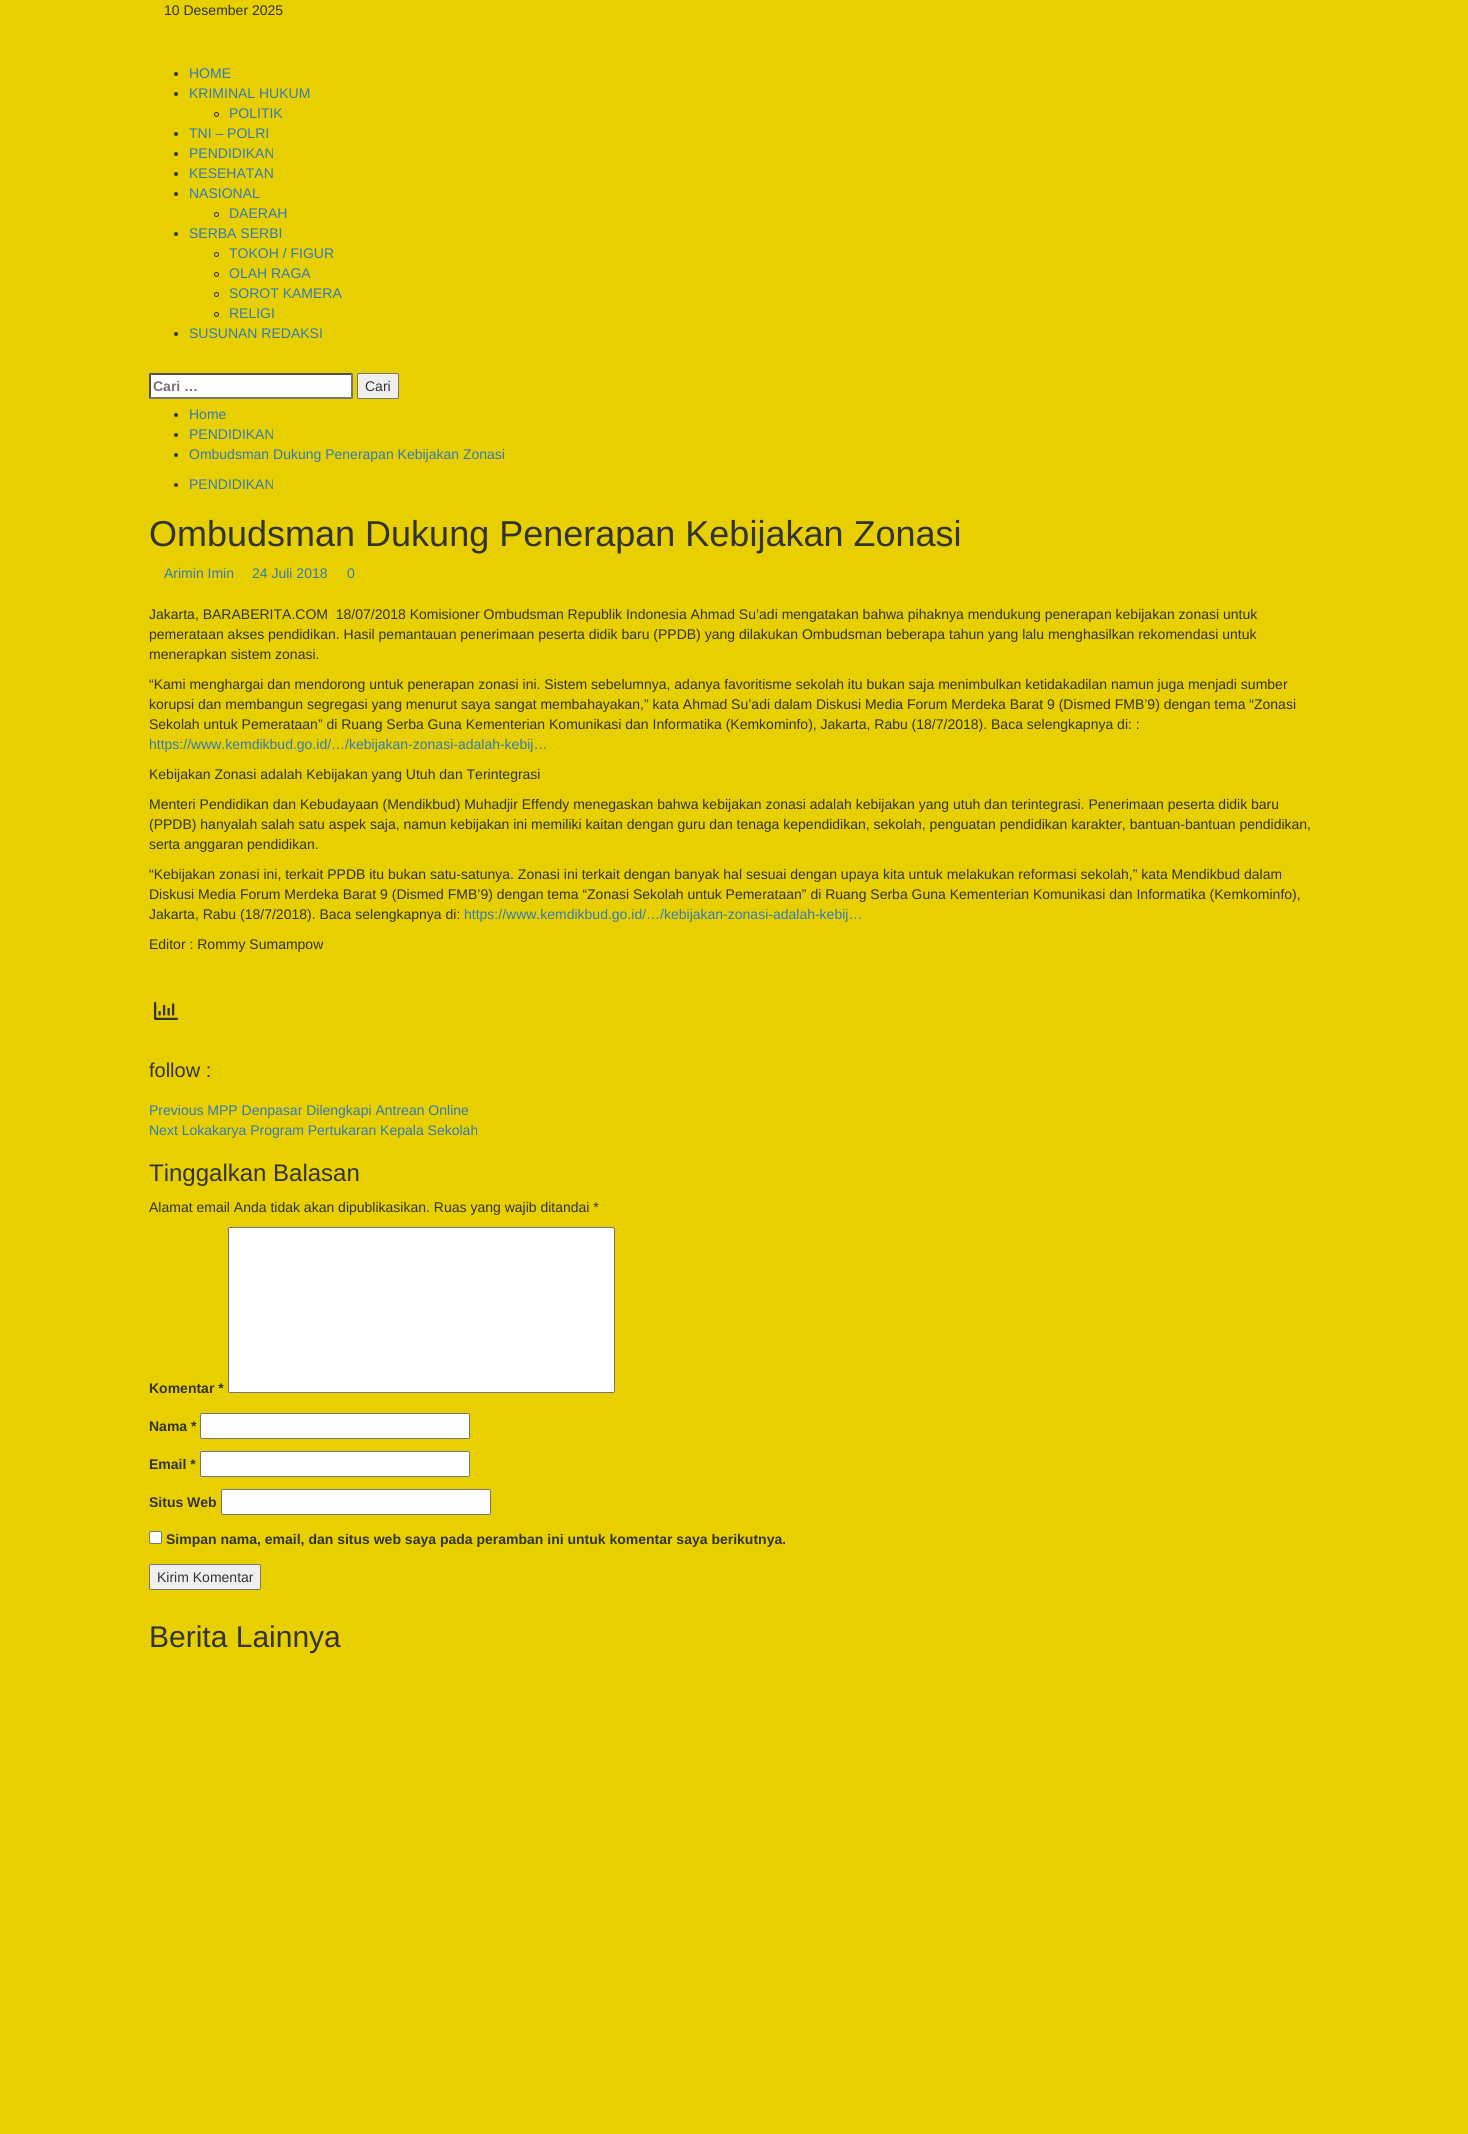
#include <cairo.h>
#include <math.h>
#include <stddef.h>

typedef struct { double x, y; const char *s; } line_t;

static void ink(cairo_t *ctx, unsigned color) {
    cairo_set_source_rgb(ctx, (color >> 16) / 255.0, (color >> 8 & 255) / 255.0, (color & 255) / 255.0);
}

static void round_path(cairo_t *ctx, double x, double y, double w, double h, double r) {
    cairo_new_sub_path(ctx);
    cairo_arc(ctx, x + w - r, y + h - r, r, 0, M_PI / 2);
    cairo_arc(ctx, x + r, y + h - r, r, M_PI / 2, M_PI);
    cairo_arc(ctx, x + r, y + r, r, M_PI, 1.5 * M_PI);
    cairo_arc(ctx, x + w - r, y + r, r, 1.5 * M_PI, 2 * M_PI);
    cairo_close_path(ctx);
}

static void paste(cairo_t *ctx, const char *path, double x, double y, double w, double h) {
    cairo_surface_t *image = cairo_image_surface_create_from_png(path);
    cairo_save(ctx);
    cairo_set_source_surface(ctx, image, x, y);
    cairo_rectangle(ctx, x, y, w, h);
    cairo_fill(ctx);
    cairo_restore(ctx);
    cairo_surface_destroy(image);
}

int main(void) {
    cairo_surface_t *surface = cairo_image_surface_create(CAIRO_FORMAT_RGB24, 1468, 2134);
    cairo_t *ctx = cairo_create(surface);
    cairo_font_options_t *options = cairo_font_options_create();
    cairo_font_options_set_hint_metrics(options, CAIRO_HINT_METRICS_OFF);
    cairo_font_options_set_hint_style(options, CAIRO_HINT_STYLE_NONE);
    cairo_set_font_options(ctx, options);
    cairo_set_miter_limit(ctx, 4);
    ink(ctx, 0xE8D000);
    cairo_paint(ctx);
    cairo_select_font_face(ctx, "Liberation Sans", CAIRO_FONT_SLANT_NORMAL, CAIRO_FONT_WEIGHT_NORMAL);
    cairo_set_font_size(ctx, 14);
    ink(ctx, 0x333333);
    cairo_move_to(ctx, 164, 15);
    cairo_show_text(ctx, "10 Desember 2025");
    cairo_new_path(ctx);
    cairo_arc(ctx, 176, 74, 2, 0, 2 * M_PI);
    cairo_fill(ctx);
    ink(ctx, 0x337AB7);
    cairo_move_to(ctx, 189, 78);
    cairo_show_text(ctx, "HOME");
    ink(ctx, 0x333333);
    cairo_new_path(ctx);
    cairo_arc(ctx, 176, 94, 2, 0, 2 * M_PI);
    cairo_fill(ctx);
    ink(ctx, 0x337AB7);
    cairo_move_to(ctx, 189, 98);
    cairo_show_text(ctx, "KRIMINAL HUKUM");
    cairo_new_path(ctx);
    cairo_arc(ctx, 216.5, 114.5, 2, 0, 2 * M_PI);
    ink(ctx, 0x333333);
    cairo_set_line_width(ctx, 1);
    cairo_stroke(ctx);
    ink(ctx, 0x337AB7);
    cairo_move_to(ctx, 229, 118);
    cairo_show_text(ctx, "POLITIK");
    ink(ctx, 0x333333);
    cairo_new_path(ctx);
    cairo_arc(ctx, 176, 134, 2, 0, 2 * M_PI);
    cairo_fill(ctx);
    ink(ctx, 0x337AB7);
    cairo_move_to(ctx, 189, 138);
    cairo_show_text(ctx, "TNI – POLRI");
    ink(ctx, 0x333333);
    cairo_new_path(ctx);
    cairo_arc(ctx, 176, 154, 2, 0, 2 * M_PI);
    cairo_fill(ctx);
    ink(ctx, 0x337AB7);
    cairo_move_to(ctx, 189, 158);
    cairo_show_text(ctx, "PENDIDIKAN");
    ink(ctx, 0x333333);
    cairo_new_path(ctx);
    cairo_arc(ctx, 176, 174, 2, 0, 2 * M_PI);
    cairo_fill(ctx);
    ink(ctx, 0x337AB7);
    cairo_move_to(ctx, 189, 178);
    cairo_show_text(ctx, "KESEHATAN");
    ink(ctx, 0x333333);
    cairo_new_path(ctx);
    cairo_arc(ctx, 176, 194, 2, 0, 2 * M_PI);
    cairo_fill(ctx);
    ink(ctx, 0x337AB7);
    cairo_move_to(ctx, 189, 198);
    cairo_show_text(ctx, "NASIONAL");
    cairo_new_path(ctx);
    cairo_arc(ctx, 216.5, 214.5, 2, 0, 2 * M_PI);
    ink(ctx, 0x333333);
    cairo_stroke(ctx);
    ink(ctx, 0x337AB7);
    cairo_move_to(ctx, 229, 218);
    cairo_show_text(ctx, "DAERAH");
    ink(ctx, 0x333333);
    cairo_new_path(ctx);
    cairo_arc(ctx, 176, 234, 2, 0, 2 * M_PI);
    cairo_fill(ctx);
    ink(ctx, 0x337AB7);
    cairo_move_to(ctx, 189, 238);
    cairo_show_text(ctx, "SERBA SERBI");
    cairo_new_path(ctx);
    cairo_arc(ctx, 216.5, 254.5, 2, 0, 2 * M_PI);
    ink(ctx, 0x333333);
    cairo_stroke(ctx);
    ink(ctx, 0x337AB7);
    cairo_move_to(ctx, 229, 258);
    cairo_show_text(ctx, "TOKOH / FIGUR");
    cairo_new_path(ctx);
    cairo_arc(ctx, 216.5, 274.5, 2, 0, 2 * M_PI);
    ink(ctx, 0x333333);
    cairo_stroke(ctx);
    ink(ctx, 0x337AB7);
    cairo_move_to(ctx, 229, 278);
    cairo_show_text(ctx, "OLAH RAGA");
    cairo_new_path(ctx);
    cairo_arc(ctx, 216.5, 294.5, 2, 0, 2 * M_PI);
    ink(ctx, 0x333333);
    cairo_stroke(ctx);
    ink(ctx, 0x337AB7);
    cairo_move_to(ctx, 229, 298);
    cairo_show_text(ctx, "SOROT KAMERA");
    cairo_new_path(ctx);
    cairo_arc(ctx, 216.5, 314.5, 2, 0, 2 * M_PI);
    ink(ctx, 0x333333);
    cairo_stroke(ctx);
    ink(ctx, 0x337AB7);
    cairo_move_to(ctx, 229, 318);
    cairo_show_text(ctx, "RELIGI");
    ink(ctx, 0x333333);
    cairo_new_path(ctx);
    cairo_arc(ctx, 176, 334, 2, 0, 2 * M_PI);
    cairo_fill(ctx);
    ink(ctx, 0x337AB7);
    cairo_move_to(ctx, 189, 338);
    cairo_show_text(ctx, "SUSUNAN REDAKSI");
    ink(ctx, 0xFFFFFF);
    cairo_rectangle(ctx, 149, 373, 204, 26);
    cairo_fill(ctx);
    ink(ctx, 0x4F4F4F);
    cairo_new_path(ctx);
    cairo_move_to(ctx, 149, 373);
    cairo_line_to(ctx, 353, 373);
    cairo_line_to(ctx, 351, 375);
    cairo_line_to(ctx, 151, 375);
    cairo_close_path(ctx);
    cairo_fill(ctx);
    ink(ctx, 0x767676);
    cairo_new_path(ctx);
    cairo_move_to(ctx, 353, 373);
    cairo_line_to(ctx, 353, 399);
    cairo_line_to(ctx, 351, 397);
    cairo_line_to(ctx, 351, 375);
    cairo_close_path(ctx);
    cairo_fill(ctx);
    cairo_new_path(ctx);
    cairo_move_to(ctx, 353, 399);
    cairo_line_to(ctx, 149, 399);
    cairo_line_to(ctx, 151, 397);
    cairo_line_to(ctx, 351, 397);
    cairo_close_path(ctx);
    cairo_fill(ctx);
    ink(ctx, 0x4F4F4F);
    cairo_new_path(ctx);
    cairo_move_to(ctx, 149, 399);
    cairo_line_to(ctx, 149, 373);
    cairo_line_to(ctx, 151, 375);
    cairo_line_to(ctx, 151, 397);
    cairo_close_path(ctx);
    cairo_fill(ctx);
    cairo_select_font_face(ctx, "Liberation Sans", CAIRO_FONT_SLANT_NORMAL, CAIRO_FONT_WEIGHT_BOLD);
    ink(ctx, 0x757575);
    cairo_move_to(ctx, 153, 391);
    cairo_show_text(ctx, "Cari …");
    ink(ctx, 0xEFEFEF);
    round_path(ctx, 357.5, 373.5, 41, 25, 1.5);
    cairo_fill_preserve(ctx);
    ink(ctx, 0x767676);
    cairo_stroke(ctx);
    cairo_select_font_face(ctx, "Liberation Sans", CAIRO_FONT_SLANT_NORMAL, CAIRO_FONT_WEIGHT_NORMAL);
    ink(ctx, 0x333333);
    cairo_move_to(ctx, 365, 391);
    cairo_show_text(ctx, "Cari");
    cairo_new_path(ctx);
    cairo_arc(ctx, 176, 415, 2, 0, 2 * M_PI);
    cairo_fill(ctx);
    ink(ctx, 0x337AB7);
    cairo_move_to(ctx, 189, 419);
    cairo_show_text(ctx, "Home");
    ink(ctx, 0x333333);
    cairo_new_path(ctx);
    cairo_arc(ctx, 176, 435, 2, 0, 2 * M_PI);
    cairo_fill(ctx);
    ink(ctx, 0x337AB7);
    cairo_move_to(ctx, 189, 439);
    cairo_show_text(ctx, "PENDIDIKAN");
    ink(ctx, 0x333333);
    cairo_new_path(ctx);
    cairo_arc(ctx, 176, 455, 2, 0, 2 * M_PI);
    cairo_fill(ctx);
    ink(ctx, 0x337AB7);
    cairo_move_to(ctx, 189, 459);
    cairo_show_text(ctx, "Ombudsman Dukung Penerapan Kebijakan Zonasi");
    ink(ctx, 0x333333);
    cairo_new_path(ctx);
    cairo_arc(ctx, 176, 485, 2, 0, 2 * M_PI);
    cairo_fill(ctx);
    ink(ctx, 0x337AB7);
    cairo_move_to(ctx, 189, 489);
    cairo_show_text(ctx, "PENDIDIKAN");
    cairo_set_font_size(ctx, 36);
    ink(ctx, 0x333333);
    cairo_move_to(ctx, 149, 546);
    cairo_show_text(ctx, "Ombudsman Dukung Penerapan Kebijakan Zonasi");
    cairo_set_font_size(ctx, 14);
    ink(ctx, 0x337AB7);
    {
        static const line_t items[] = {
            {164, 578, "Arimin Imin"},
            {252, 578, "24 Juli 2018"},
            {347, 578, "0"},
        };
        for (size_t i = 0; i < sizeof items / sizeof *items; i++) {
            cairo_move_to(ctx, items[i].x, items[i].y);
            cairo_show_text(ctx, items[i].s);
        }
    }
    ink(ctx, 0x333333);
    {
        static const line_t items[] = {
            {149, 619, "Jakarta, BARABERITA.COM  18/07/2018 Komisioner Ombudsman Republik Indonesia Ahmad Su’adi mengatakan bahwa pihaknya mendukung penerapan kebijakan zonasi untuk"},
            {149, 639, "pemerataan akses pendidikan. Hasil pemantauan penerimaan peserta didik baru (PPDB) yang dilakukan Ombudsman beberapa tahun yang lalu menghasilkan rekomendasi untuk"},
            {149, 659, "menerapkan sistem zonasi."},
            {149, 689, "“Kami menghargai dan mendorong untuk penerapan zonasi ini. Sistem sebelumnya, adanya favoritisme sekolah itu bukan saja menimbulkan ketidakadilan namun juga menjadi sumber"},
            {149, 709, "korupsi dan membangun segregasi yang menurut saya sangat membahayakan,” kata Ahmad Su’adi dalam Diskusi Media Forum Merdeka Barat 9 (Dismed FMB’9) dengan tema “Zonasi"},
            {149, 729, "Sekolah untuk Pemerataan” di Ruang Serba Guna Kementerian Komunikasi dan Informatika (Kemkominfo), Jakarta, Rabu (18/7/2018). Baca selengkapnya di: :"},
        };
        for (size_t i = 0; i < sizeof items / sizeof *items; i++) {
            cairo_move_to(ctx, items[i].x, items[i].y);
            cairo_show_text(ctx, items[i].s);
        }
    }
    ink(ctx, 0x337AB7);
    cairo_move_to(ctx, 149, 749);
    cairo_show_text(ctx, "https://www.kemdikbud.go.id/…/kebijakan-zonasi-adalah-kebij…");
    ink(ctx, 0x333333);
    {
        static const line_t items[] = {
            {149, 779, "Kebijakan Zonasi adalah Kebijakan yang Utuh dan Terintegrasi"},
            {149, 809, "Menteri Pendidikan dan Kebudayaan (Mendikbud) Muhadjir Effendy menegaskan bahwa kebijakan zonasi adalah kebijakan yang utuh dan terintegrasi. Penerimaan peserta didik baru"},
            {149, 829, "(PPDB) hanyalah salah satu aspek saja, namun kebijakan ini memiliki kaitan dengan guru dan tenaga kependidikan, sekolah, penguatan pendidikan karakter, bantuan-bantuan pendidikan,"},
            {149, 849, "serta anggaran pendidikan."},
            {149, 879, "“Kebijakan zonasi ini, terkait PPDB itu bukan satu-satunya. Zonasi ini terkait dengan banyak hal sesuai dengan upaya kita untuk melakukan reformasi sekolah,” kata Mendikbud dalam"},
            {149, 899, "Diskusi Media Forum Merdeka Barat 9 (Dismed FMB’9) dengan tema “Zonasi Sekolah untuk Pemerataan” di Ruang Serba Guna Kementerian Komunikasi dan Informatika (Kemkominfo),"},
            {149, 919, "Jakarta, Rabu (18/7/2018). Baca selengkapnya di:"},
        };
        for (size_t i = 0; i < sizeof items / sizeof *items; i++) {
            cairo_move_to(ctx, items[i].x, items[i].y);
            cairo_show_text(ctx, items[i].s);
        }
    }
    ink(ctx, 0x337AB7);
    cairo_move_to(ctx, 464, 919);
    cairo_show_text(ctx, "https://www.kemdikbud.go.id/…/kebijakan-zonasi-adalah-kebij…");
    ink(ctx, 0x333333);
    cairo_move_to(ctx, 149, 949);
    cairo_show_text(ctx, "Editor : Rommy Sumampow");
    paste(ctx, "media/1.png", 154, 1002, 24, 18);
    cairo_set_font_size(ctx, 20);
    cairo_move_to(ctx, 149, 1077);
    cairo_show_text(ctx, "follow :");
    cairo_set_font_size(ctx, 14);
    ink(ctx, 0x337AB7);
    cairo_move_to(ctx, 149, 1115);
    cairo_show_text(ctx, "Previous MPP Denpasar Dilengkapi Antrean Online");
    cairo_move_to(ctx, 149, 1135);
    cairo_show_text(ctx, "Next Lokakarya Program Pertukaran Kepala Sekolah");
    cairo_set_font_size(ctx, 24);
    ink(ctx, 0x333333);
    cairo_move_to(ctx, 149, 1181);
    cairo_show_text(ctx, "Tinggalkan Balasan");
    cairo_set_font_size(ctx, 14);
    cairo_move_to(ctx, 149, 1212);
    cairo_show_text(ctx, "Alamat email Anda tidak akan dipublikasikan. Ruas yang wajib ditandai *");
    cairo_select_font_face(ctx, "Liberation Sans", CAIRO_FONT_SLANT_NORMAL, CAIRO_FONT_WEIGHT_BOLD);
    cairo_move_to(ctx, 149, 1393);
    cairo_show_text(ctx, "Komentar *");
    ink(ctx, 0xFFFFFF);
    round_path(ctx, 228.5, 1227.5, 386, 165, 1.5);
    cairo_fill_preserve(ctx);
    ink(ctx, 0x767676);
    cairo_stroke(ctx);
    ink(ctx, 0x333333);
    cairo_move_to(ctx, 149, 1431);
    cairo_show_text(ctx, "Nama *");
    ink(ctx, 0xFFFFFF);
    round_path(ctx, 200.5, 1413.5, 269, 25, 1.5);
    cairo_fill_preserve(ctx);
    ink(ctx, 0x767676);
    cairo_stroke(ctx);
    ink(ctx, 0x333333);
    cairo_move_to(ctx, 149, 1469);
    cairo_show_text(ctx, "Email *");
    ink(ctx, 0xFFFFFF);
    round_path(ctx, 200.5, 1451.5, 269, 25, 1.5);
    cairo_fill_preserve(ctx);
    ink(ctx, 0x767676);
    cairo_stroke(ctx);
    ink(ctx, 0x333333);
    cairo_move_to(ctx, 149, 1507);
    cairo_show_text(ctx, "Situs Web");
    ink(ctx, 0xFFFFFF);
    round_path(ctx, 221.5, 1489.5, 269, 25, 1.5);
    cairo_fill_preserve(ctx);
    ink(ctx, 0x767676);
    cairo_stroke(ctx);
    ink(ctx, 0xFFFFFF);
    round_path(ctx, 149.5, 1531.5, 12, 12, 1.5);
    cairo_fill_preserve(ctx);
    ink(ctx, 0x767676);
    cairo_stroke(ctx);
    ink(ctx, 0x333333);
    cairo_move_to(ctx, 166, 1544);
    cairo_show_text(ctx, "Simpan nama, email, dan situs web saya pada peramban ini untuk komentar saya berikutnya.");
    ink(ctx, 0xEFEFEF);
    round_path(ctx, 149.5, 1564.5, 111, 25, 1.5);
    cairo_fill_preserve(ctx);
    ink(ctx, 0x767676);
    cairo_stroke(ctx);
    cairo_select_font_face(ctx, "Liberation Sans", CAIRO_FONT_SLANT_NORMAL, CAIRO_FONT_WEIGHT_NORMAL);
    ink(ctx, 0x333333);
    cairo_move_to(ctx, 157, 1582);
    cairo_show_text(ctx, "Kirim Komentar");
    cairo_set_font_size(ctx, 30);
    cairo_move_to(ctx, 149, 1647);
    cairo_show_text(ctx, "Berita Lainnya");
    cairo_surface_write_to_png(surface, "image.png");
    cairo_font_options_destroy(options);
    cairo_destroy(ctx);
    cairo_surface_destroy(surface);
    return 0;
}
